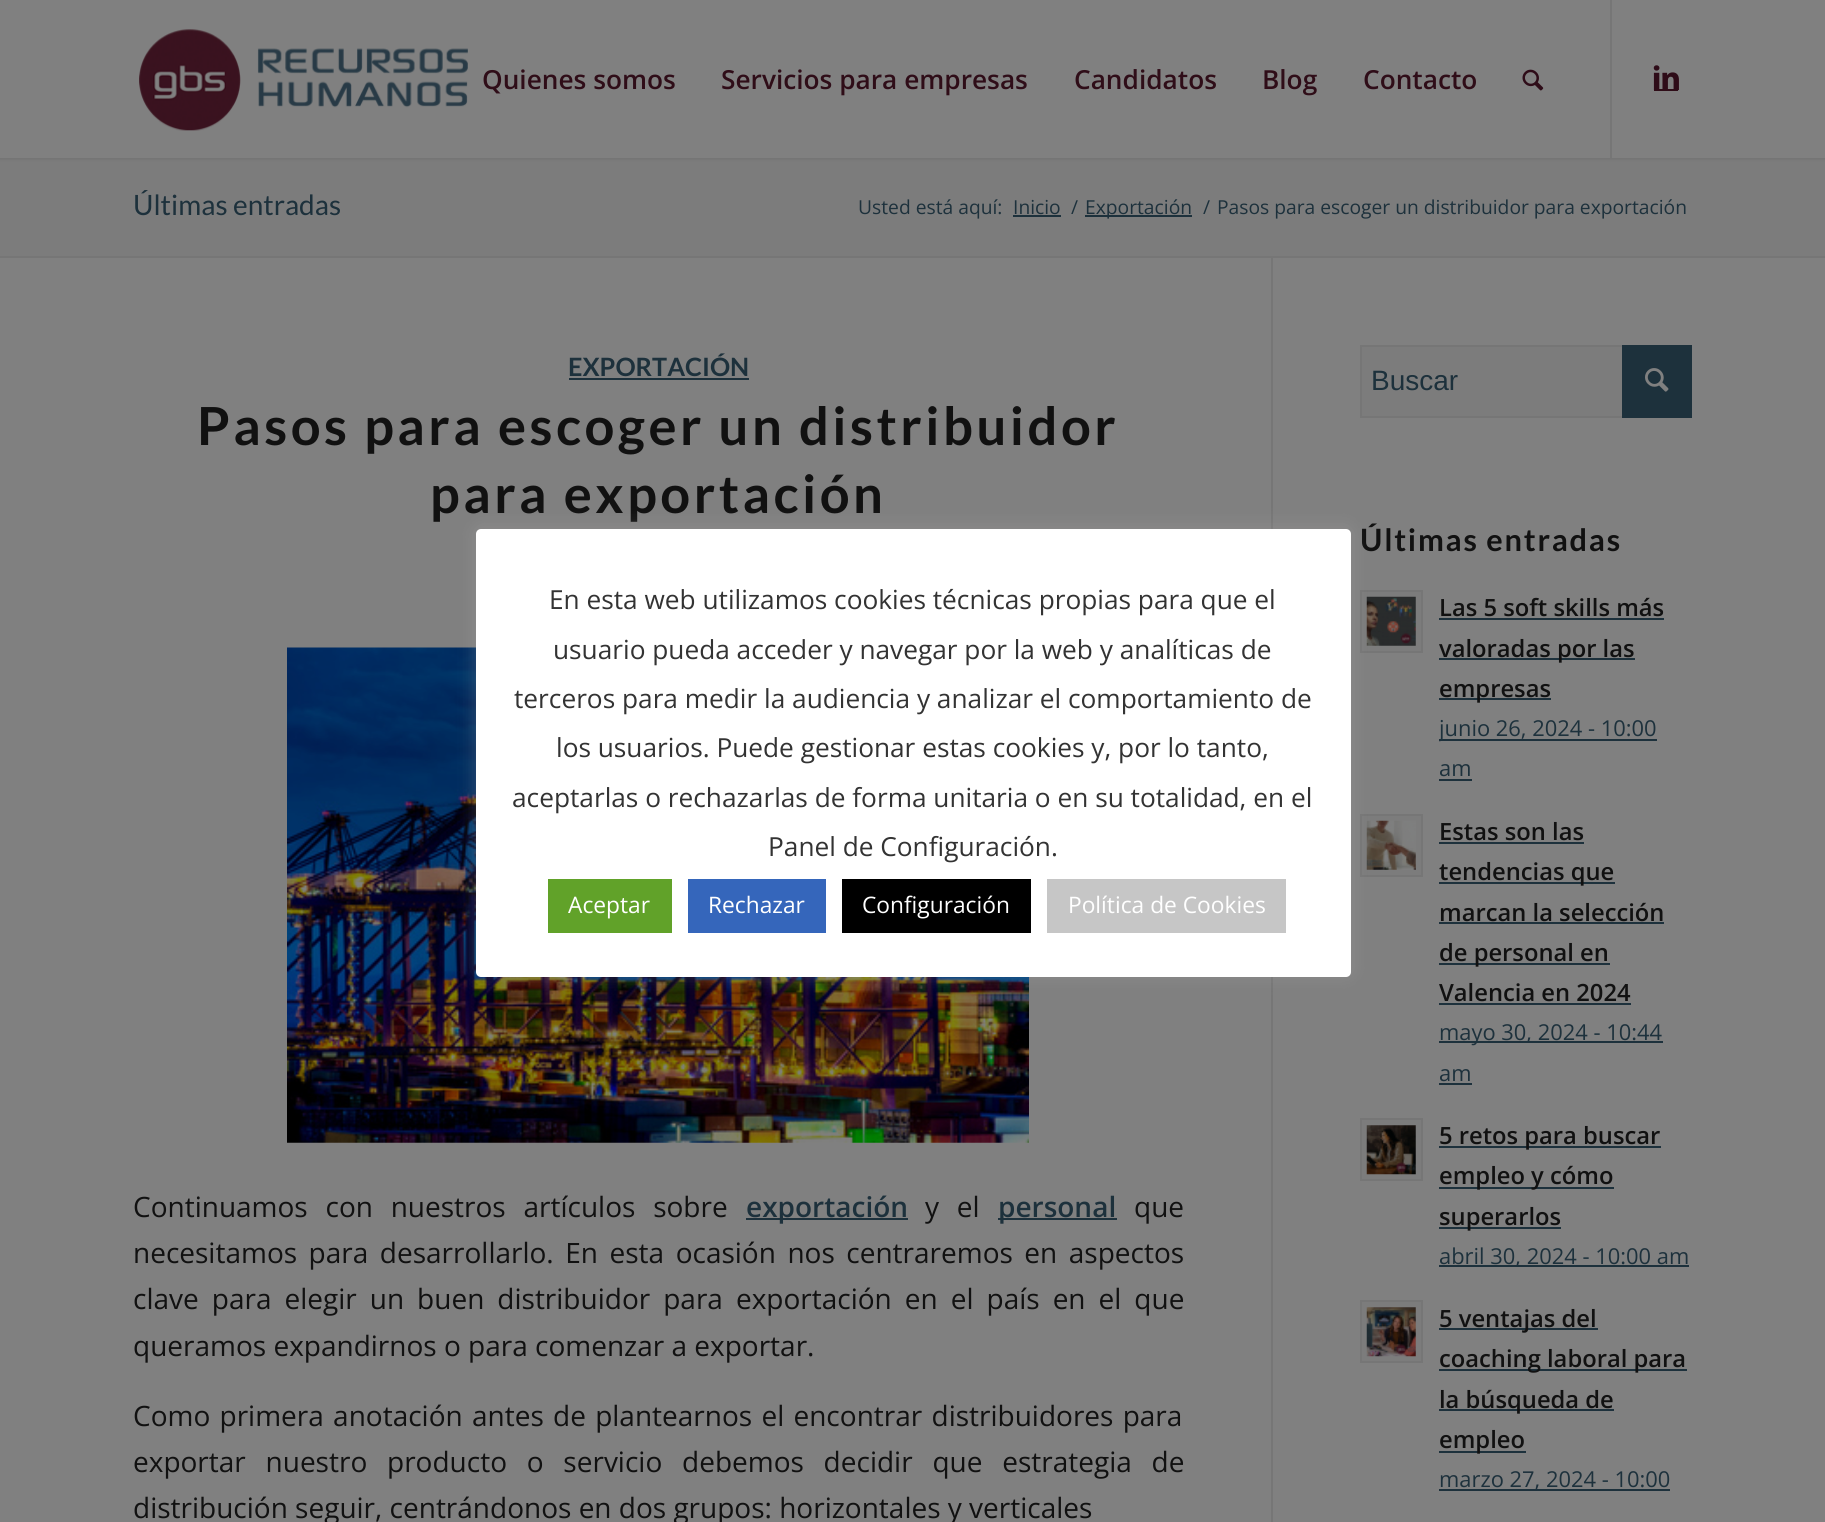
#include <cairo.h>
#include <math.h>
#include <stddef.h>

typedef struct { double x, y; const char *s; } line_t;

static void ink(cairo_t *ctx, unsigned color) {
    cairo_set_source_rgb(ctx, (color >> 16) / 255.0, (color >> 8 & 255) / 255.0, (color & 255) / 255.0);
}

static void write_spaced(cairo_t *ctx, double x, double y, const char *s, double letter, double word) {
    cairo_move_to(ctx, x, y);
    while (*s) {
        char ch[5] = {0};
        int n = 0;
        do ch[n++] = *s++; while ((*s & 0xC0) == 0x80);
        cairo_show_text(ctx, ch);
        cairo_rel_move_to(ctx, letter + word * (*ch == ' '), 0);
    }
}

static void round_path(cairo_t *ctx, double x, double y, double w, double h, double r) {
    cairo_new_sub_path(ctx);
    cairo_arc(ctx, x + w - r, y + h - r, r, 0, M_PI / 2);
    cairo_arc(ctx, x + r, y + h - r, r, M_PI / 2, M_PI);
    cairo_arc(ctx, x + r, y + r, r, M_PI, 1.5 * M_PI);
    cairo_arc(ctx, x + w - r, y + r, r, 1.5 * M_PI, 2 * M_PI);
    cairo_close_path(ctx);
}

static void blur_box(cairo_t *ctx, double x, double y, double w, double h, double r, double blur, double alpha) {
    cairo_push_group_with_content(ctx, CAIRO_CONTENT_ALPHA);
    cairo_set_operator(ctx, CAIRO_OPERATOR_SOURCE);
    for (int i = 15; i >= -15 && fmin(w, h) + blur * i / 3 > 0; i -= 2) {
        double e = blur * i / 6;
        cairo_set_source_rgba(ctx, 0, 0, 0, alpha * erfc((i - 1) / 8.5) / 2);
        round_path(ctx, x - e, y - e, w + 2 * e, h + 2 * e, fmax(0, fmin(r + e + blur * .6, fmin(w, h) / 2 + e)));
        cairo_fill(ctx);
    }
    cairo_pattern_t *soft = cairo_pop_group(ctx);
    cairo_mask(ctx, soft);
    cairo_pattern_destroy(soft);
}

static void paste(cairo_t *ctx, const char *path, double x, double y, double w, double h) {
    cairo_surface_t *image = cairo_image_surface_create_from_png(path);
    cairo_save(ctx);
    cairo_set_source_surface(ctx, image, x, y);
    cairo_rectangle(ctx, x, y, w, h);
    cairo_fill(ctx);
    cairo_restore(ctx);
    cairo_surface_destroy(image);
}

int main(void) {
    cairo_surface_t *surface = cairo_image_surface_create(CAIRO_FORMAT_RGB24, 1825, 1522);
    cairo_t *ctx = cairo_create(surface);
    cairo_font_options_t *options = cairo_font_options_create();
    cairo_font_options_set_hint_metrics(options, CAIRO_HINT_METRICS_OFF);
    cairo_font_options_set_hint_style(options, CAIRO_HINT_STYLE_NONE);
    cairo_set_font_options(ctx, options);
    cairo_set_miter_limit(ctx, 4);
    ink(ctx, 0x808080);
    cairo_paint(ctx);
    ink(ctx, 0x7C7C7C);
    cairo_rectangle(ctx, 0, 158, 1825, 98);
    cairo_fill(ctx);
    ink(ctx, 0x000000);
    blur_box(ctx, -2, -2, 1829, 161, 0, 2, 0.1);
    ink(ctx, 0x808080);
    cairo_rectangle(ctx, 0, 0, 1825, 158);
    cairo_fill(ctx);
    paste(ctx, "media/1.png", 139, 29, 329, 102);
    ink(ctx, 0x767676);
    cairo_rectangle(ctx, 1610, 0, 2, 158);
    cairo_fill(ctx);
    cairo_select_font_face(ctx, "Open Sans SemiBold", CAIRO_FONT_SLANT_NORMAL, CAIRO_FONT_WEIGHT_NORMAL);
    cairo_set_font_size(ctx, 26.25);
    ink(ctx, 0x2F0D18);
    {
        static const line_t items[] = {
            {482, 89, "Quienes somos"},
            {721, 89, "Servicios para empresas"},
            {1074, 89, "Candidatos"},
            {1262, 89, "Blog"},
            {1363, 89, "Contacto"},
        };
        for (size_t i = 0; i < sizeof items / sizeof *items; i++) {
            cairo_move_to(ctx, items[i].x, items[i].y);
            cairo_show_text(ctx, items[i].s);
        }
    }
    paste(ctx, "media/2.png", 1522, 69, 22, 22);
    cairo_rectangle(ctx, 1654, 89, 24, 2);
    cairo_fill(ctx);
    paste(ctx, "media/3.png", 1653, 65, 26, 26);
    cairo_select_font_face(ctx, "Lato", CAIRO_FONT_SLANT_NORMAL, CAIRO_FONT_WEIGHT_NORMAL);
    cairo_set_font_size(ctx, 28);
    ink(ctx, 0x1D313C);
    cairo_move_to(ctx, 133, 215);
    cairo_show_text(ctx, "Últimas entradas");
    cairo_select_font_face(ctx, "Open Sans", CAIRO_FONT_SLANT_NORMAL, CAIRO_FONT_WEIGHT_NORMAL);
    cairo_set_font_size(ctx, 19.25);
    cairo_move_to(ctx, 858, 214);
    cairo_show_text(ctx, "Usted está aquí:");
    cairo_move_to(ctx, 1013, 214);
    cairo_show_text(ctx, "Inicio");
    cairo_rectangle(ctx, 1013, 215, 48, 2);
    cairo_fill(ctx);
    cairo_move_to(ctx, 1071, 214);
    cairo_show_text(ctx, "/");
    cairo_rectangle(ctx, 1085, 215, 107, 2);
    cairo_fill(ctx);
    {
        static const line_t items[] = {
            {1085, 214, "Exportación"},
            {1203, 214, "/"},
            {1217, 214, "Pasos para escoger un distribuidor para exportación"},
        };
        for (size_t i = 0; i < sizeof items / sizeof *items; i++) {
            cairo_move_to(ctx, items[i].x, items[i].y);
            cairo_show_text(ctx, items[i].s);
        }
    }
    ink(ctx, 0x767676);
    cairo_rectangle(ctx, 0, 256, 1825, 2);
    cairo_fill(ctx);
    cairo_rectangle(ctx, 1271, 257, 2, 1265);
    cairo_fill(ctx);
    cairo_select_font_face(ctx, "Lato", CAIRO_FONT_SLANT_NORMAL, CAIRO_FONT_WEIGHT_BOLD);
    cairo_set_font_size(ctx, 25.25);
    ink(ctx, 0x1D313C);
    cairo_move_to(ctx, 568, 376);
    cairo_show_text(ctx, "EXPORTACIÓN");
    cairo_rectangle(ctx, 569, 378, 180, 2);
    cairo_fill(ctx);
    cairo_set_font_size(ctx, 52.5);
    ink(ctx, 0x111111);
    write_spaced(ctx, 197, 445, "Pasos para escoger un distribuidor", 3.5, 0);
    write_spaced(ctx, 430, 513, "para exportación", 3.5, 0);
    paste(ctx, "media/4.png", 287, 647, 742, 496);
    cairo_select_font_face(ctx, "Open Sans", CAIRO_FONT_SLANT_NORMAL, CAIRO_FONT_WEIGHT_NORMAL);
    cairo_set_font_size(ctx, 28);
    write_spaced(ctx, 133, 1217, "Continuamos con nuestros artículos sobre", 0, 10.5);
    ink(ctx, 0x1D313C);
    cairo_rectangle(ctx, 746, 1218, 162, 2);
    cairo_fill(ctx);
    cairo_select_font_face(ctx, "Open Sans SemiBold", CAIRO_FONT_SLANT_NORMAL, CAIRO_FONT_WEIGHT_NORMAL);
    cairo_move_to(ctx, 746, 1217);
    cairo_show_text(ctx, "exportación");
    cairo_select_font_face(ctx, "Open Sans", CAIRO_FONT_SLANT_NORMAL, CAIRO_FONT_WEIGHT_NORMAL);
    ink(ctx, 0x111111);
    write_spaced(ctx, 925, 1217, "y el", 0, 10.5);
    ink(ctx, 0x1D313C);
    cairo_rectangle(ctx, 998, 1218, 119, 2);
    cairo_fill(ctx);
    cairo_select_font_face(ctx, "Open Sans SemiBold", CAIRO_FONT_SLANT_NORMAL, CAIRO_FONT_WEIGHT_NORMAL);
    cairo_move_to(ctx, 998, 1217);
    cairo_show_text(ctx, "personal");
    cairo_select_font_face(ctx, "Open Sans", CAIRO_FONT_SLANT_NORMAL, CAIRO_FONT_WEIGHT_NORMAL);
    ink(ctx, 0x111111);
    cairo_move_to(ctx, 1134, 1217);
    cairo_show_text(ctx, "que");
    write_spaced(ctx, 133, 1263, "necesitamos para desarrollarlo. En esta ocasión nos centraremos en aspectos", 0, 4.25);
    write_spaced(ctx, 133, 1309, "clave para elegir un buen distribuidor para exportación en el país en el que", 0, 5.75);
    cairo_move_to(ctx, 133, 1356);
    cairo_show_text(ctx, "queramos expandirnos o para comenzar a exportar.");
    write_spaced(ctx, 133, 1426, "Como primera anotación antes de plantearnos el encontrar distribuidores para", 0, 2);
    write_spaced(ctx, 133, 1472, "exportar nuestro producto o servicio debemos decidir que estrategia de", 0, 12.5);
    cairo_move_to(ctx, 133, 1518);
    cairo_show_text(ctx, "distribución seguir, centrándonos en dos grupos: horizontales y verticales");
    ink(ctx, 0x7C7C7C);
    cairo_rectangle(ctx, 1362, 347, 260, 69);
    cairo_fill(ctx);
    cairo_rectangle(ctx, 1361, 346, 330, 71);
    ink(ctx, 0x767676);
    cairo_stroke(ctx);
    cairo_select_font_face(ctx, "Liberation Sans", CAIRO_FONT_SLANT_NORMAL, CAIRO_FONT_WEIGHT_NORMAL);
    ink(ctx, 0x1D313C);
    cairo_move_to(ctx, 1371, 390);
    cairo_show_text(ctx, "Buscar");
    cairo_rectangle(ctx, 1622, 345, 70, 73);
    cairo_fill(ctx);
    paste(ctx, "media/5.png", 1645, 368, 24, 24);
    cairo_select_font_face(ctx, "Lato", CAIRO_FONT_SLANT_NORMAL, CAIRO_FONT_WEIGHT_BOLD);
    cairo_set_font_size(ctx, 30.75);
    ink(ctx, 0x111111);
    write_spaced(ctx, 1360, 551, "Últimas entradas", 1.75, 0);
    ink(ctx, 0x7C7C7C);
    cairo_rectangle(ctx, 1361, 591, 61, 61);
    cairo_fill_preserve(ctx);
    ink(ctx, 0x767676);
    cairo_stroke(ctx);
    paste(ctx, "media/6.png", 1366, 596, 50, 50);
    cairo_select_font_face(ctx, "Open Sans SemiBold", CAIRO_FONT_SLANT_NORMAL, CAIRO_FONT_WEIGHT_NORMAL);
    cairo_set_font_size(ctx, 23.75);
    ink(ctx, 0x111111);
    cairo_move_to(ctx, 1439, 616);
    cairo_show_text(ctx, "Las 5 soft skills más");
    ink(ctx, 0x1D313C);
    cairo_rectangle(ctx, 1439, 618, 225, 2);
    cairo_fill(ctx);
    cairo_rectangle(ctx, 1439, 658, 196, 2);
    cairo_fill(ctx);
    ink(ctx, 0x111111);
    cairo_move_to(ctx, 1439, 657);
    cairo_show_text(ctx, "valoradas por las");
    ink(ctx, 0x1D313C);
    cairo_rectangle(ctx, 1439, 698, 112, 2);
    cairo_fill(ctx);
    ink(ctx, 0x111111);
    cairo_move_to(ctx, 1439, 697);
    cairo_show_text(ctx, "empresas");
    ink(ctx, 0x1D313C);
    cairo_rectangle(ctx, 1439, 739, 218, 2);
    cairo_fill(ctx);
    cairo_save(ctx);
    cairo_rectangle(ctx, 1439, 586, 253, 203);
    cairo_clip(ctx);
    cairo_select_font_face(ctx, "Open Sans", CAIRO_FONT_SLANT_NORMAL, CAIRO_FONT_WEIGHT_NORMAL);
    cairo_set_font_size(ctx, 21.9);
    cairo_move_to(ctx, 1439, 736);
    cairo_show_text(ctx, "junio 26, 2024 - 10:00");
    cairo_restore(ctx);
    cairo_select_font_face(ctx, "Open Sans", CAIRO_FONT_SLANT_NORMAL, CAIRO_FONT_WEIGHT_NORMAL);
    cairo_set_font_size(ctx, 21.9);
    cairo_move_to(ctx, 1439, 776);
    cairo_show_text(ctx, "am");
    cairo_rectangle(ctx, 1439, 779, 33, 2);
    cairo_fill(ctx);
    ink(ctx, 0x7C7C7C);
    cairo_rectangle(ctx, 1361, 815, 61, 61);
    cairo_fill_preserve(ctx);
    ink(ctx, 0x767676);
    cairo_stroke(ctx);
    paste(ctx, "media/7.png", 1366, 820, 50, 50);
    cairo_select_font_face(ctx, "Open Sans SemiBold", CAIRO_FONT_SLANT_NORMAL, CAIRO_FONT_WEIGHT_NORMAL);
    cairo_set_font_size(ctx, 23.75);
    ink(ctx, 0x111111);
    cairo_move_to(ctx, 1439, 840);
    cairo_show_text(ctx, "Estas son las");
    ink(ctx, 0x1D313C);
    cairo_rectangle(ctx, 1439, 842, 145, 2);
    cairo_fill(ctx);
    cairo_rectangle(ctx, 1439, 882, 176, 2);
    cairo_fill(ctx);
    ink(ctx, 0x111111);
    cairo_move_to(ctx, 1439, 880);
    cairo_show_text(ctx, "tendencias que");
    cairo_move_to(ctx, 1439, 921);
    cairo_show_text(ctx, "marcan la selección");
    ink(ctx, 0x1D313C);
    cairo_rectangle(ctx, 1439, 922, 225, 2);
    cairo_fill(ctx);
    cairo_rectangle(ctx, 1439, 963, 171, 2);
    cairo_fill(ctx);
    ink(ctx, 0x111111);
    cairo_move_to(ctx, 1439, 961);
    cairo_show_text(ctx, "de personal en");
    cairo_move_to(ctx, 1439, 1001);
    cairo_show_text(ctx, "Valencia en 2024");
    ink(ctx, 0x1D313C);
    cairo_rectangle(ctx, 1439, 1003, 192, 2);
    cairo_fill(ctx);
    cairo_rectangle(ctx, 1439, 1041, 224, 2);
    cairo_fill(ctx);
    cairo_select_font_face(ctx, "Open Sans", CAIRO_FONT_SLANT_NORMAL, CAIRO_FONT_WEIGHT_NORMAL);
    cairo_set_font_size(ctx, 21.9);
    cairo_move_to(ctx, 1439, 1040);
    cairo_show_text(ctx, "mayo 30, 2024 - 10:44");
    cairo_move_to(ctx, 1439, 1081);
    cairo_show_text(ctx, "am");
    cairo_rectangle(ctx, 1439, 1083, 33, 2);
    cairo_fill(ctx);
    ink(ctx, 0x7C7C7C);
    cairo_rectangle(ctx, 1361, 1119, 61, 61);
    cairo_fill_preserve(ctx);
    ink(ctx, 0x767676);
    cairo_stroke(ctx);
    paste(ctx, "media/8.png", 1366, 1125, 50, 50);
    ink(ctx, 0x1D313C);
    cairo_rectangle(ctx, 1439, 1146, 222, 2);
    cairo_fill(ctx);
    cairo_select_font_face(ctx, "Open Sans SemiBold", CAIRO_FONT_SLANT_NORMAL, CAIRO_FONT_WEIGHT_NORMAL);
    cairo_set_font_size(ctx, 23.75);
    ink(ctx, 0x111111);
    cairo_move_to(ctx, 1439, 1144);
    cairo_show_text(ctx, "5 retos para buscar");
    ink(ctx, 0x1D313C);
    cairo_rectangle(ctx, 1439, 1187, 175, 2);
    cairo_fill(ctx);
    ink(ctx, 0x111111);
    cairo_move_to(ctx, 1439, 1184);
    cairo_show_text(ctx, "empleo y cómo");
    ink(ctx, 0x1D313C);
    cairo_rectangle(ctx, 1439, 1227, 122, 2);
    cairo_fill(ctx);
    ink(ctx, 0x111111);
    cairo_move_to(ctx, 1439, 1225);
    cairo_show_text(ctx, "superarlos");
    ink(ctx, 0x1D313C);
    cairo_rectangle(ctx, 1439, 1265, 250, 2);
    cairo_fill(ctx);
    cairo_select_font_face(ctx, "Open Sans", CAIRO_FONT_SLANT_NORMAL, CAIRO_FONT_WEIGHT_NORMAL);
    cairo_set_font_size(ctx, 21.9);
    cairo_move_to(ctx, 1439, 1264);
    cairo_show_text(ctx, "abril 30, 2024 - 10:00 am");
    ink(ctx, 0x7C7C7C);
    cairo_rectangle(ctx, 1361, 1301, 61, 61);
    cairo_fill_preserve(ctx);
    ink(ctx, 0x767676);
    cairo_stroke(ctx);
    paste(ctx, "media/9.png", 1366, 1307, 50, 50);
    ink(ctx, 0x1D313C);
    cairo_rectangle(ctx, 1439, 1328, 159, 2);
    cairo_fill(ctx);
    cairo_select_font_face(ctx, "Open Sans SemiBold", CAIRO_FONT_SLANT_NORMAL, CAIRO_FONT_WEIGHT_NORMAL);
    cairo_set_font_size(ctx, 23.75);
    ink(ctx, 0x111111);
    cairo_move_to(ctx, 1439, 1327);
    cairo_show_text(ctx, "5 ventajas del");
    ink(ctx, 0x1D313C);
    cairo_rectangle(ctx, 1439, 1369, 248, 2);
    cairo_fill(ctx);
    ink(ctx, 0x111111);
    cairo_move_to(ctx, 1439, 1367);
    cairo_show_text(ctx, "coaching laboral para");
    ink(ctx, 0x1D313C);
    cairo_rectangle(ctx, 1439, 1409, 175, 2);
    cairo_fill(ctx);
    ink(ctx, 0x111111);
    cairo_move_to(ctx, 1439, 1408);
    cairo_show_text(ctx, "la búsqueda de");
    ink(ctx, 0x1D313C);
    cairo_rectangle(ctx, 1439, 1451, 87, 2);
    cairo_fill(ctx);
    ink(ctx, 0x111111);
    cairo_move_to(ctx, 1439, 1448);
    cairo_show_text(ctx, "empleo");
    ink(ctx, 0x1D313C);
    cairo_rectangle(ctx, 1439, 1489, 231, 2);
    cairo_fill(ctx);
    cairo_select_font_face(ctx, "Open Sans", CAIRO_FONT_SLANT_NORMAL, CAIRO_FONT_WEIGHT_NORMAL);
    cairo_set_font_size(ctx, 21.9);
    cairo_move_to(ctx, 1439, 1487);
    cairo_show_text(ctx, "marzo 27, 2024 - 10:00");
    ink(ctx, 0xACABAB);
    blur_box(ctx, 476, 527, 875, 448, 5, 9, 0.3);
    ink(ctx, 0xFFFFFF);
    round_path(ctx, 476, 529, 875, 448, 5);
    cairo_fill(ctx);
    cairo_set_font_size(ctx, 26.25);
    ink(ctx, 0x333333);
    {
        static const line_t items[] = {
            {549, 609, "En esta web utilizamos cookies técnicas propias para que el"},
            {553, 659, "usuario pueda acceder y navegar por la web y analíticas de"},
            {514, 708, "terceros para medir la audiencia y analizar el comportamiento de"},
            {556, 757, "los usuarios. Puede gestionar estas cookies y, por lo tanto,"},
            {512, 807, "aceptarlas o rechazarlas de forma unitaria o en su totalidad, en el"},
            {768, 856, "Panel de Configuración."},
        };
        for (size_t i = 0; i < sizeof items / sizeof *items; i++) {
            cairo_move_to(ctx, items[i].x, items[i].y);
            cairo_show_text(ctx, items[i].s);
        }
    }
    ink(ctx, 0x61A229);
    cairo_rectangle(ctx, 548, 879, 124, 54);
    cairo_fill(ctx);
    cairo_set_font_size(ctx, 22.75);
    ink(ctx, 0xFFFFFF);
    cairo_move_to(ctx, 568, 913);
    cairo_show_text(ctx, "Aceptar");
    ink(ctx, 0x3566BB);
    cairo_rectangle(ctx, 688, 879, 138, 54);
    cairo_fill(ctx);
    ink(ctx, 0xFFFFFF);
    cairo_move_to(ctx, 708, 913);
    cairo_show_text(ctx, "Rechazar");
    ink(ctx, 0x000000);
    cairo_rectangle(ctx, 842, 879, 189, 54);
    cairo_fill(ctx);
    ink(ctx, 0xFFFFFF);
    cairo_move_to(ctx, 862, 913);
    cairo_show_text(ctx, "Configuración");
    ink(ctx, 0xC6C6C6);
    cairo_rectangle(ctx, 1047, 879, 239, 54);
    cairo_fill(ctx);
    ink(ctx, 0xFFFFFF);
    cairo_move_to(ctx, 1068, 913);
    cairo_show_text(ctx, "Política de Cookies");
    cairo_surface_write_to_png(surface, "image.png");
    cairo_font_options_destroy(options);
    cairo_destroy(ctx);
    cairo_surface_destroy(surface);
    return 0;
}
